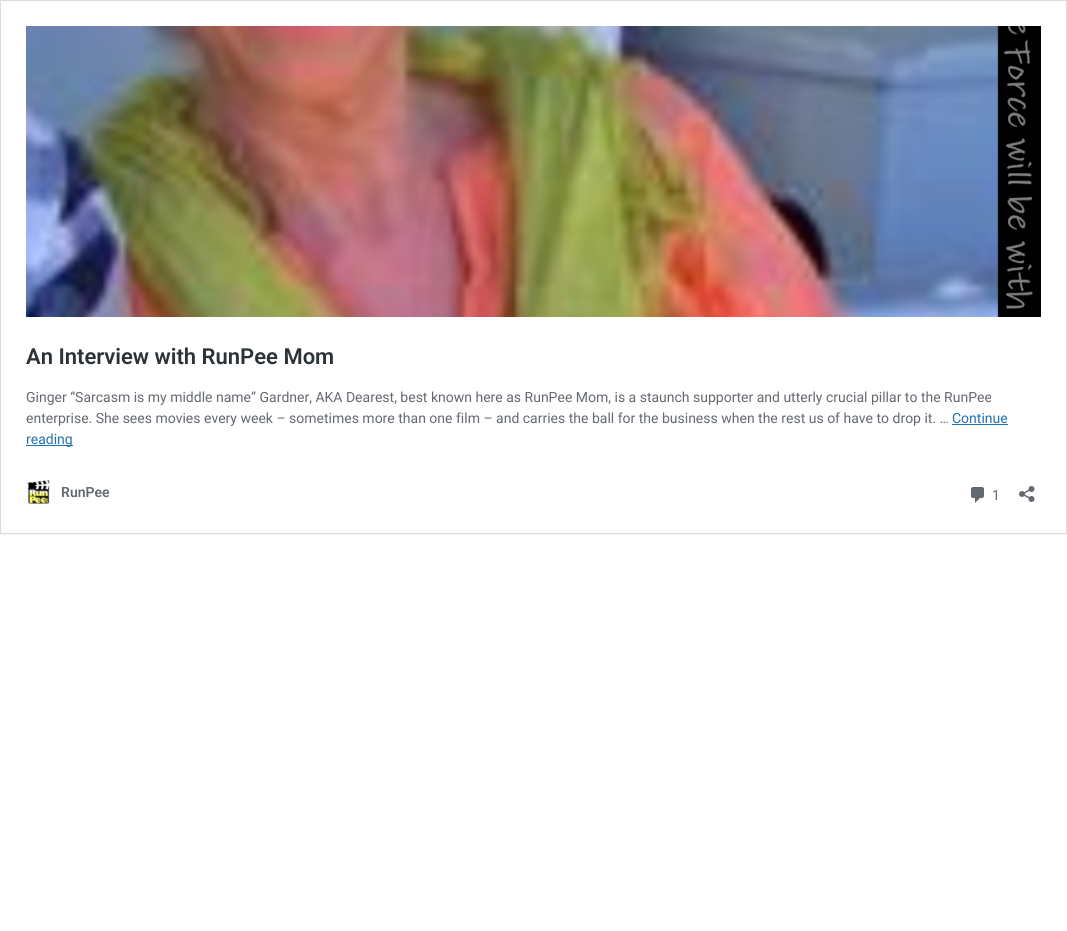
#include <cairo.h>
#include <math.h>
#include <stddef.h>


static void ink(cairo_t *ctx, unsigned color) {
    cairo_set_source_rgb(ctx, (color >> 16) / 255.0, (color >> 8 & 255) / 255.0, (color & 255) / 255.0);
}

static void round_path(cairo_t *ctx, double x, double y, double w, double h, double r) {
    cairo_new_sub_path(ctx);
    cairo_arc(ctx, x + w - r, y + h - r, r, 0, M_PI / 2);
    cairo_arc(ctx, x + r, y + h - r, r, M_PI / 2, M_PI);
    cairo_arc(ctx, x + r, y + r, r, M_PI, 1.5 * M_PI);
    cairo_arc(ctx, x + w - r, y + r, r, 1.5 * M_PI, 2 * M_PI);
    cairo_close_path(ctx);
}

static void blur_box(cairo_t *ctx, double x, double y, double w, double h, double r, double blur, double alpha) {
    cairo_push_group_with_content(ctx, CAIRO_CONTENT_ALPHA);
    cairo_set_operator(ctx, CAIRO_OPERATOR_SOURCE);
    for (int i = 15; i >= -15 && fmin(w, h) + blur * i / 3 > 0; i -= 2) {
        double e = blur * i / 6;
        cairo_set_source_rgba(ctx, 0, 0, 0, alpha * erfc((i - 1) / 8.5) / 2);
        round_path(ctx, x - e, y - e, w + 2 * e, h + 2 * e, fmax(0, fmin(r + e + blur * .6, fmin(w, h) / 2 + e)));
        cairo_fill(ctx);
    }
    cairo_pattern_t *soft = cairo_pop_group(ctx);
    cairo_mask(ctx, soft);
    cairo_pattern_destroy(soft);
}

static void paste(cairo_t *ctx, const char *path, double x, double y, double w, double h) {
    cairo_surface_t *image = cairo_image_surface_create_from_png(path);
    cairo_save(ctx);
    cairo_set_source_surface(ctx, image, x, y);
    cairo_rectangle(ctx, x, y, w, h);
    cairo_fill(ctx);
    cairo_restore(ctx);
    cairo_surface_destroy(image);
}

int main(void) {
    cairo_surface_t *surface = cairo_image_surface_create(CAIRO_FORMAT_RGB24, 1067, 931);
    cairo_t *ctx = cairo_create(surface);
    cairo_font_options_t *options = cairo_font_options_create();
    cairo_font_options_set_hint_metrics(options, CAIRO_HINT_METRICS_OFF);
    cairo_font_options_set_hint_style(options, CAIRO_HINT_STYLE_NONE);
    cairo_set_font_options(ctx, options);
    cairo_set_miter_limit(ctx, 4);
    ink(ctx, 0xFFFFFF);
    cairo_paint(ctx);
    cairo_save(ctx);
    cairo_rectangle(ctx, 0, 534, 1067, 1);
    cairo_clip(ctx);
    ink(ctx, 0x000000);
    blur_box(ctx, 0, 1, 1067, 534, 0, 0.5, 0.05);
    cairo_restore(ctx);
    cairo_rectangle(ctx, 0.5, 0.5, 1066, 533);
    ink(ctx, 0xDCDCDE);
    cairo_set_line_width(ctx, 1);
    cairo_stroke(ctx);
    paste(ctx, "media/1.png", 26, 26, 1015, 291);
    cairo_select_font_face(ctx, "Roboto SemiBold", CAIRO_FONT_SLANT_NORMAL, CAIRO_FONT_WEIGHT_NORMAL);
    cairo_set_font_size(ctx, 22);
    ink(ctx, 0x2C3338);
    cairo_move_to(ctx, 26, 364);
    cairo_show_text(ctx, "An Interview with RunPee Mom");
    cairo_select_font_face(ctx, "Roboto", CAIRO_FONT_SLANT_NORMAL, CAIRO_FONT_WEIGHT_NORMAL);
    cairo_set_font_size(ctx, 14);
    ink(ctx, 0x646970);
    cairo_move_to(ctx, 26, 402);
    cairo_show_text(ctx, "Ginger “Sarcasm is my middle name” Gardner, AKA Dearest, best known here as RunPee Mom, is a staunch supporter and utterly crucial pillar to the RunPee");
    cairo_move_to(ctx, 26, 423);
    cairo_show_text(ctx, "enterprise. She sees movies every week – sometimes more than one film – and carries the ball for the business when the rest us of have to drop it. …");
    ink(ctx, 0x2271B1);
    cairo_move_to(ctx, 952, 423);
    cairo_show_text(ctx, "Continue");
    cairo_rectangle(ctx, 952, 424, 56, 1);
    cairo_fill(ctx);
    cairo_rectangle(ctx, 26, 445, 47, 1);
    cairo_fill(ctx);
    cairo_move_to(ctx, 26, 444);
    cairo_show_text(ctx, "reading");
    paste(ctx, "media/2.png", 27, 480, 23, 24);
    cairo_select_font_face(ctx, "Roboto SemiBold", CAIRO_FONT_SLANT_NORMAL, CAIRO_FONT_WEIGHT_NORMAL);
    ink(ctx, 0x646970);
    cairo_move_to(ctx, 61, 497);
    cairo_show_text(ctx, "RunPee");
    paste(ctx, "media/3.png", 971, 487, 13, 16);
    cairo_select_font_face(ctx, "Roboto", CAIRO_FONT_SLANT_NORMAL, CAIRO_FONT_WEIGHT_NORMAL);
    cairo_move_to(ctx, 992, 500);
    cairo_show_text(ctx, "1");
    paste(ctx, "media/4.png", 1019, 486, 16, 16);
    cairo_surface_write_to_png(surface, "image.png");
    cairo_font_options_destroy(options);
    cairo_destroy(ctx);
    cairo_surface_destroy(surface);
    return 0;
}
